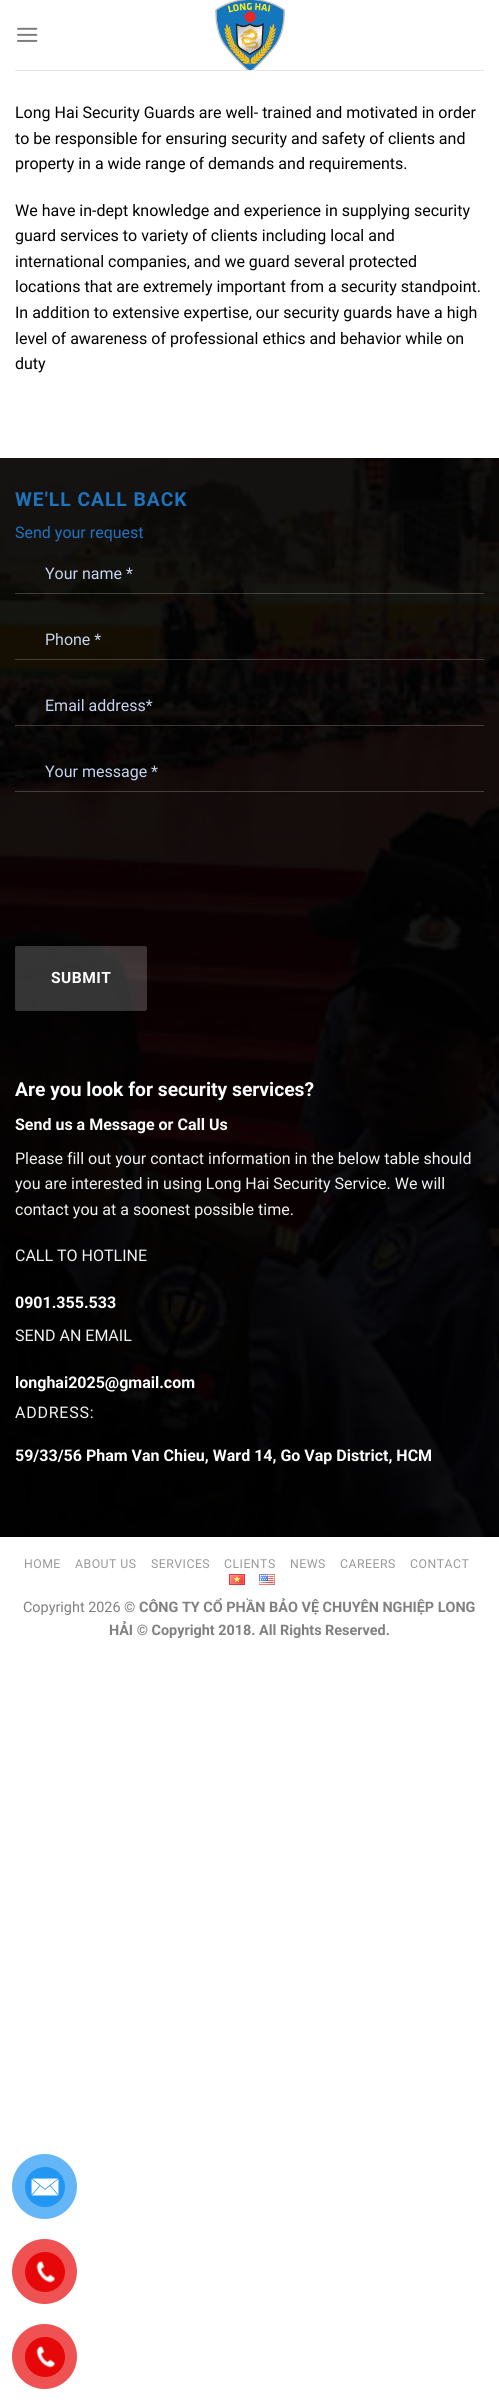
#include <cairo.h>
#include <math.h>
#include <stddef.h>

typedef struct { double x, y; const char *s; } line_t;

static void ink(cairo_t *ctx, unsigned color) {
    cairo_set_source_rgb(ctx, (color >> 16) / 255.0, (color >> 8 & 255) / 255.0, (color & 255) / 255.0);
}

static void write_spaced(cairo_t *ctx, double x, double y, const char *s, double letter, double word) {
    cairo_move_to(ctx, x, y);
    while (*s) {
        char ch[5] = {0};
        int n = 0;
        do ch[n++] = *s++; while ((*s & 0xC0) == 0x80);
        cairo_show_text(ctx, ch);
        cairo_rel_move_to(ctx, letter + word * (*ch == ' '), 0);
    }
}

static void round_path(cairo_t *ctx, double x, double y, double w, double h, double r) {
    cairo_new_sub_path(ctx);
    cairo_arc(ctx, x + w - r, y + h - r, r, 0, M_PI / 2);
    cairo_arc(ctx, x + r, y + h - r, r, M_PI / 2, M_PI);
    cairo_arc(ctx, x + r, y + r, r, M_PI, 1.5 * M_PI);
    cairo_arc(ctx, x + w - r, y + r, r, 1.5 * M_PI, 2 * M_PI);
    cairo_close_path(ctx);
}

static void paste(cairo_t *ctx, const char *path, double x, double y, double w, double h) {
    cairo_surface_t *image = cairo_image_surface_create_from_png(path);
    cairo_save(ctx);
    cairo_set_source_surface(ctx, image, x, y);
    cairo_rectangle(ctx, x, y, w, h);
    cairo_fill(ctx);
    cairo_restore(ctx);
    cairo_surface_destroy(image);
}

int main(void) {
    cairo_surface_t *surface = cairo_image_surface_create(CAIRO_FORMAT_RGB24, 499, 2402);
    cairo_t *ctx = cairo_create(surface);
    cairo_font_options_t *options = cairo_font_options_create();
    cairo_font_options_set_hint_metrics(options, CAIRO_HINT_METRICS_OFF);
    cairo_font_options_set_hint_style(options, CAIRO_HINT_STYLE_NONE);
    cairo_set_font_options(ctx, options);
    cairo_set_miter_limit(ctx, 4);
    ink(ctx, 0xFFFFFF);
    cairo_paint(ctx);
    paste(ctx, "media/1.png", 17, 27, 21, 15);
    paste(ctx, "media/2.png", 215, 0, 70, 70);
    ink(ctx, 0xE6E6E6);
    cairo_rectangle(ctx, 15, 70, 469, 1);
    cairo_fill(ctx);
    cairo_select_font_face(ctx, "Roboto", CAIRO_FONT_SLANT_NORMAL, CAIRO_FONT_WEIGHT_NORMAL);
    cairo_set_font_size(ctx, 16);
    ink(ctx, 0x000000);
    {
        static const line_t items[] = {
            {15, 118, "Long Hai Security Guards are well- trained and motivated in order"},
            {15, 144, "to be responsible for ensuring security and safety of clients and"},
            {15, 169, "property in a wide range of demands and requirements."},
            {15, 216, "We have in-dept knowledge and experience in supplying security"},
            {15, 241, "guard services to variety of clients including local and"},
            {15, 267, "international companies, and we guard several protected"},
            {15, 292, "locations that are extremely important from a security standpoint."},
            {15, 318, "In addition to extensive expertise, our security guards have a high"},
            {15, 344, "level of awareness of professional ethics and behavior while on"},
            {15, 369, "duty"},
        };
        for (size_t i = 0; i < sizeof items / sizeof *items; i++) {
            cairo_move_to(ctx, items[i].x, items[i].y);
            cairo_show_text(ctx, items[i].s);
        }
    }
    paste(ctx, "media/3.png", 0, 458, 499, 1079);
    cairo_select_font_face(ctx, "Roboto", CAIRO_FONT_SLANT_NORMAL, CAIRO_FONT_WEIGHT_BOLD);
    cairo_set_font_size(ctx, 19.25);
    ink(ctx, 0x1E73BE);
    write_spaced(ctx, 15, 506, "WE'LL CALL BACK", 1, 0);
    cairo_select_font_face(ctx, "Roboto", CAIRO_FONT_SLANT_NORMAL, CAIRO_FONT_WEIGHT_NORMAL);
    cairo_set_font_size(ctx, 16);
    cairo_move_to(ctx, 15, 538);
    cairo_show_text(ctx, "Send your request");
    cairo_set_source_rgba(ctx, 1, 1, 1, 0.2);
    cairo_rectangle(ctx, 15, 593, 469, 1);
    cairo_fill(ctx);
    ink(ctx, 0xC6D4EE);
    cairo_move_to(ctx, 45, 579);
    cairo_show_text(ctx, "Your name *");
    cairo_set_source_rgba(ctx, 1, 1, 1, 0.2);
    cairo_rectangle(ctx, 15, 659, 469, 1);
    cairo_fill(ctx);
    ink(ctx, 0xC6D4EE);
    cairo_move_to(ctx, 45, 645);
    cairo_show_text(ctx, "Phone *");
    cairo_set_source_rgba(ctx, 1, 1, 1, 0.2);
    cairo_rectangle(ctx, 15, 725, 469, 1);
    cairo_fill(ctx);
    ink(ctx, 0xC6D4EE);
    cairo_move_to(ctx, 45, 711);
    cairo_show_text(ctx, "Email address*");
    cairo_set_source_rgba(ctx, 1, 1, 1, 0.2);
    cairo_rectangle(ctx, 15, 791, 469, 1);
    cairo_fill(ctx);
    ink(ctx, 0xC6D4EE);
    cairo_move_to(ctx, 45, 777);
    cairo_show_text(ctx, "Your message *");
    cairo_set_source_rgba(ctx, 1, 1, 1, 0.2);
    round_path(ctx, 15, 946, 132, 65, 2);
    cairo_fill(ctx);
    cairo_rectangle(ctx, 15.5, 946.5, 131, 64);
    cairo_set_source_rgba(ctx, 0, 0, 0, 0.05);
    cairo_set_line_width(ctx, 1);
    cairo_stroke(ctx);
    cairo_select_font_face(ctx, "Roboto", CAIRO_FONT_SLANT_NORMAL, CAIRO_FONT_WEIGHT_BOLD);
    cairo_set_font_size(ctx, 15.5);
    ink(ctx, 0xFFFFFF);
    write_spaced(ctx, 51, 983, "SUBMIT", 0.5, 0);
    cairo_set_font_size(ctx, 19.25);
    cairo_move_to(ctx, 15, 1096);
    cairo_show_text(ctx, "Are you look for security services?");
    cairo_set_font_size(ctx, 16);
    cairo_move_to(ctx, 15, 1130);
    cairo_show_text(ctx, "Send us a Message or Call Us");
    cairo_select_font_face(ctx, "Roboto", CAIRO_FONT_SLANT_NORMAL, CAIRO_FONT_WEIGHT_NORMAL);
    ink(ctx, 0xF1F1F1);
    {
        static const line_t items[] = {
            {15, 1164, "Please fill out your contact information in the below table should"},
            {15, 1189, "you are interested in using Long Hai Security Service. We will"},
            {15, 1215, "contact you at a soonest possible time."},
            {15, 1261, "CALL TO HOTLINE"},
        };
        for (size_t i = 0; i < sizeof items / sizeof *items; i++) {
            cairo_move_to(ctx, items[i].x, items[i].y);
            cairo_show_text(ctx, items[i].s);
        }
    }
    cairo_select_font_face(ctx, "Roboto", CAIRO_FONT_SLANT_NORMAL, CAIRO_FONT_WEIGHT_BOLD);
    ink(ctx, 0xFFFFFF);
    cairo_move_to(ctx, 15, 1308);
    cairo_show_text(ctx, "0901.355.533");
    cairo_select_font_face(ctx, "Roboto", CAIRO_FONT_SLANT_NORMAL, CAIRO_FONT_WEIGHT_NORMAL);
    ink(ctx, 0xF1F1F1);
    cairo_move_to(ctx, 15, 1341);
    cairo_show_text(ctx, "SEND AN EMAIL");
    cairo_select_font_face(ctx, "Roboto", CAIRO_FONT_SLANT_NORMAL, CAIRO_FONT_WEIGHT_BOLD);
    ink(ctx, 0xFFFFFF);
    cairo_move_to(ctx, 15, 1388);
    cairo_show_text(ctx, "longhai2025@gmail.com");
    cairo_select_font_face(ctx, "Roboto", CAIRO_FONT_SLANT_NORMAL, CAIRO_FONT_WEIGHT_NORMAL);
    ink(ctx, 0xF1F1F1);
    write_spaced(ctx, 15, 1418, "ADDRESS:", 0.75, 0);
    cairo_select_font_face(ctx, "Roboto", CAIRO_FONT_SLANT_NORMAL, CAIRO_FONT_WEIGHT_BOLD);
    ink(ctx, 0xFFFFFF);
    cairo_move_to(ctx, 15, 1461);
    cairo_show_text(ctx, "59/33/56 Pham Van Chieu, Ward 14, Go Vap District, HCM");
    cairo_select_font_face(ctx, "Roboto", CAIRO_FONT_SLANT_NORMAL, CAIRO_FONT_WEIGHT_NORMAL);
    cairo_set_font_size(ctx, 12.25);
    ink(ctx, 0x999999);
    {
        static const line_t items[] = {
            {24, 1568, "HOME"},
            {75, 1568, "ABOUT US"},
            {151, 1568, "SERVICES"},
            {224, 1568, "CLIENTS"},
            {290, 1568, "NEWS"},
            {340, 1568, "CAREERS"},
            {410, 1568, "CONTACT"},
        };
        for (size_t i = 0; i < sizeof items / sizeof *items; i++) {
            write_spaced(ctx, items[i].x, items[i].y, items[i].s, 0.5, 0);
        }
    }
    paste(ctx, "media/4.png", 229, 1574, 16, 11);
    paste(ctx, "media/5.png", 259, 1574, 16, 11);
    cairo_set_font_size(ctx, 14.4);
    ink(ctx, 0x808080);
    cairo_move_to(ctx, 23, 1612);
    cairo_show_text(ctx, "Copyright 2026 ©");
    cairo_select_font_face(ctx, "Roboto", CAIRO_FONT_SLANT_NORMAL, CAIRO_FONT_WEIGHT_BOLD);
    cairo_move_to(ctx, 139, 1612);
    cairo_show_text(ctx, "CÔNG TY CỔ PHẦN BẢO VỆ CHUYÊN NGHIỆP LONG");
    cairo_move_to(ctx, 109, 1635);
    cairo_show_text(ctx, "HẢI © Copyright 2018. All Rights Reserved.");
    ink(ctx, 0x64B6F7);
    cairo_new_path(ctx);
    cairo_arc(ctx, 44.5, 2186.5, 32.5, 0, 2 * M_PI);
    cairo_fill(ctx);
    ink(ctx, 0x2196F3);
    cairo_arc(ctx, 45, 2187, 20, 0, 2 * M_PI);
    cairo_fill(ctx);
    paste(ctx, "media/6.png", 31, 2178, 28, 18);
    ink(ctx, 0xEE5252);
    cairo_arc(ctx, 44.5, 2271.5, 32.5, 0, 2 * M_PI);
    cairo_fill(ctx);
    ink(ctx, 0xE60808);
    cairo_arc(ctx, 45, 2272, 20, 0, 2 * M_PI);
    cairo_fill(ctx);
    paste(ctx, "media/7.png", 36, 2261, 19, 22);
    ink(ctx, 0xEE5252);
    cairo_arc(ctx, 44.5, 2356.5, 32.5, 0, 2 * M_PI);
    cairo_fill(ctx);
    ink(ctx, 0xE60808);
    cairo_arc(ctx, 45, 2357, 20, 0, 2 * M_PI);
    cairo_fill(ctx);
    paste(ctx, "media/7.png", 36, 2346, 19, 22);
    cairo_surface_write_to_png(surface, "image.png");
    cairo_font_options_destroy(options);
    cairo_destroy(ctx);
    cairo_surface_destroy(surface);
    return 0;
}
